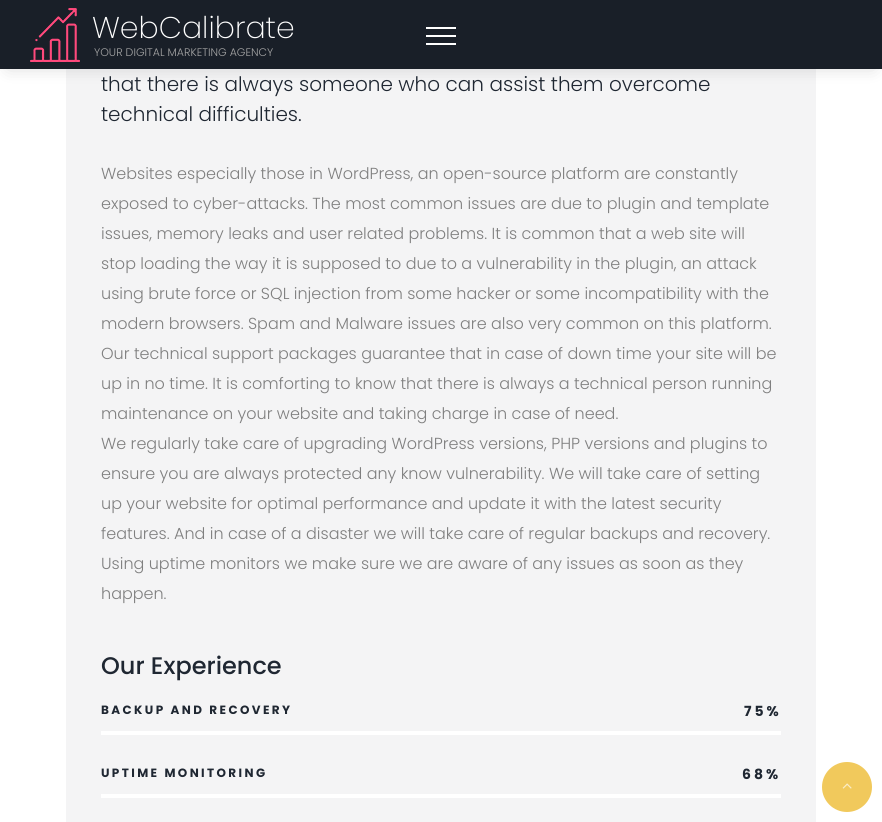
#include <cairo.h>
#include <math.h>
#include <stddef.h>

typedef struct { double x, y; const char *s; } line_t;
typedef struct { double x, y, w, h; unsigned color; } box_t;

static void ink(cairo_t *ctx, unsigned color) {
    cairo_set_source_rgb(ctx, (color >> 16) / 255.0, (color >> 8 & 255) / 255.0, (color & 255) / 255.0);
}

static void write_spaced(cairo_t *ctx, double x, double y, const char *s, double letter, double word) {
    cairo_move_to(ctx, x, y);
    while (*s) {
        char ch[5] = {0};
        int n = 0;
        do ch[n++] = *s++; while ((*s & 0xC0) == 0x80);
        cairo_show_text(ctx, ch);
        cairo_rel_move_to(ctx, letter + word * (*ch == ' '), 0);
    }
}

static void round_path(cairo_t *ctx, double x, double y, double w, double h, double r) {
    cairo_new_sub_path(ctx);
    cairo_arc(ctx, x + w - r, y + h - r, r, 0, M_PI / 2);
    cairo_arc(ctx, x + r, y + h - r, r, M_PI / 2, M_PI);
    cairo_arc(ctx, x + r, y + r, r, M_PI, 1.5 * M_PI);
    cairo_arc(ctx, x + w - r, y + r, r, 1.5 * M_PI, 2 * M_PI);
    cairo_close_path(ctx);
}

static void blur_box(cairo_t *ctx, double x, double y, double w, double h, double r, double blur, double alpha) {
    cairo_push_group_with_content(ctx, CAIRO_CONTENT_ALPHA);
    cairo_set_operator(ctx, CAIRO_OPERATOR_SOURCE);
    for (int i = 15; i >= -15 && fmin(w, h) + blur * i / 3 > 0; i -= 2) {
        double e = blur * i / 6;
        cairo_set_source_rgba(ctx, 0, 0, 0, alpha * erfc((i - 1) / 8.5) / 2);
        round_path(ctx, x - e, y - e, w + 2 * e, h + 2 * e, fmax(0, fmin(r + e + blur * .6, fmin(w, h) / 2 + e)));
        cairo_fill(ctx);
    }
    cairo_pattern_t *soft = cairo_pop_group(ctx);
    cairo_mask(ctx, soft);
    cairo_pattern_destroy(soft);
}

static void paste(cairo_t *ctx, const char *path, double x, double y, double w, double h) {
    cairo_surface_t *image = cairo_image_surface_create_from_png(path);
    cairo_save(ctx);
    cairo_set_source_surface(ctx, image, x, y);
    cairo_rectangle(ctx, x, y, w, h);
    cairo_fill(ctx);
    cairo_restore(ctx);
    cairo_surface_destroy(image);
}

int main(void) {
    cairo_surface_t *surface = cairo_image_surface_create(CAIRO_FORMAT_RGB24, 882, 822);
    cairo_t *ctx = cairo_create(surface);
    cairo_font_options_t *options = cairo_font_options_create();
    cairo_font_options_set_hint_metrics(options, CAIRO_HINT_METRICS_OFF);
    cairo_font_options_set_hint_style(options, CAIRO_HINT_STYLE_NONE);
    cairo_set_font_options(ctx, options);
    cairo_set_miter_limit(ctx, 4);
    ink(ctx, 0xFFFFFF);
    cairo_paint(ctx);
    ink(ctx, 0xF4F4F5);
    cairo_rectangle(ctx, 66, 69, 750, 753);
    cairo_fill(ctx);
    ink(ctx, 0x000000);
    blur_box(ctx, 8, 15, 866, 53, 0, 8.5, 0.15);
    ink(ctx, 0x191F28);
    cairo_rectangle(ctx, 0, 0, 882, 69);
    cairo_fill(ctx);
    paste(ctx, "media/1.png", 30, 8, 50, 54);
    cairo_select_font_face(ctx, "Poppins ExtraLight", CAIRO_FONT_SLANT_NORMAL, CAIRO_FONT_WEIGHT_NORMAL);
    cairo_set_font_size(ctx, 30);
    ink(ctx, 0xFFFFFF);
    cairo_move_to(ctx, 92, 38);
    cairo_show_text(ctx, "WebCalibrate");
    cairo_select_font_face(ctx, "Poppins Light", CAIRO_FONT_SLANT_NORMAL, CAIRO_FONT_WEIGHT_NORMAL);
    cairo_set_font_size(ctx, 11);
    ink(ctx, 0xA5A5A5);
    cairo_move_to(ctx, 94, 56);
    cairo_show_text(ctx, "YOUR DIGITAL MARKETING AGENCY");
    {
        static const box_t items[] = {
            {426, 35, 30, 2, 0xFFFFFF},
            {426, 27, 30, 2, 0xFFFFFF},
            {426, 43, 30, 2, 0xFFFFFF},
        };
        for (size_t i = 0; i < sizeof items / sizeof *items; i++) {
            ink(ctx, items[i].color);
            cairo_rectangle(ctx, items[i].x, items[i].y, items[i].w, items[i].h);
            cairo_fill(ctx);
        }
    }
    cairo_set_font_size(ctx, 20);
    ink(ctx, 0x1F2732);
    cairo_move_to(ctx, 101, 91);
    cairo_show_text(ctx, "that there is always someone who can assist them overcome");
    cairo_move_to(ctx, 101, 121);
    cairo_show_text(ctx, "technical difficulties.");
    cairo_set_font_size(ctx, 16);
    ink(ctx, 0x7F7F7F);
    {
        static const line_t items[] = {
            {101, 179, "Websites especially those in WordPress, an open-source platform are constantly"},
            {101, 209, "exposed to cyber-attacks. The most common issues are due to plugin and template"},
            {101, 239, "issues, memory leaks and user related problems. It is common that a web site will"},
            {101, 269, "stop loading the way it is supposed to due to a vulnerability in the plugin, an attack"},
            {101, 299, "using brute force or SQL injection from some hacker or some incompatibility with the"},
            {101, 329, "modern browsers. Spam and Malware issues are also very common on this platform."},
            {101, 359, "Our technical support packages guarantee that in case of down time your site will be"},
            {101, 389, "up in no time. It is comforting to know that there is always a technical person running"},
            {101, 419, "maintenance on your website and taking charge in case of need."},
            {101, 449, "We regularly take care of upgrading WordPress versions, PHP versions and plugins to"},
            {101, 479, "ensure you are always protected any know vulnerability. We will take care of setting"},
            {101, 509, "up your website for optimal performance and update it with the latest security"},
            {101, 539, "features. And in case of a disaster we will take care of regular backups and recovery."},
            {101, 569, "Using uptime monitors we make sure we are aware of any issues as soon as they"},
            {101, 599, "happen."},
        };
        for (size_t i = 0; i < sizeof items / sizeof *items; i++) {
            cairo_move_to(ctx, items[i].x, items[i].y);
            cairo_show_text(ctx, items[i].s);
        }
    }
    cairo_select_font_face(ctx, "Poppins Medium", CAIRO_FONT_SLANT_NORMAL, CAIRO_FONT_WEIGHT_NORMAL);
    cairo_set_font_size(ctx, 24);
    ink(ctx, 0x1F2732);
    cairo_move_to(ctx, 101, 674);
    cairo_show_text(ctx, "Our Experience");
    cairo_select_font_face(ctx, "Poppins", CAIRO_FONT_SLANT_NORMAL, CAIRO_FONT_WEIGHT_BOLD);
    cairo_set_font_size(ctx, 12);
    write_spaced(ctx, 101, 714, "BACKUP AND RECOVERY", 2.4, 0);
    ink(ctx, 0xFFFFFF);
    cairo_rectangle(ctx, 101, 731, 680, 4);
    cairo_fill(ctx);
    cairo_set_font_size(ctx, 14);
    ink(ctx, 0x1F2732);
    write_spaced(ctx, 744, 716, "75%", 3, 0);
    cairo_set_font_size(ctx, 12);
    write_spaced(ctx, 101, 777, "UPTIME MONITORING", 2.4, 0);
    ink(ctx, 0xFFFFFF);
    cairo_rectangle(ctx, 101, 794, 680, 4);
    cairo_fill(ctx);
    cairo_set_font_size(ctx, 14);
    ink(ctx, 0x1F2732);
    write_spaced(ctx, 742, 779, "68%", 3, 0);
    ink(ctx, 0xF1C95C);
    cairo_new_path(ctx);
    cairo_arc(ctx, 847, 787, 25, 0, 2 * M_PI);
    cairo_fill(ctx);
    paste(ctx, "media/2.png", 842, 783, 10, 6);
    cairo_surface_write_to_png(surface, "image.png");
    cairo_font_options_destroy(options);
    cairo_destroy(ctx);
    cairo_surface_destroy(surface);
    return 0;
}
